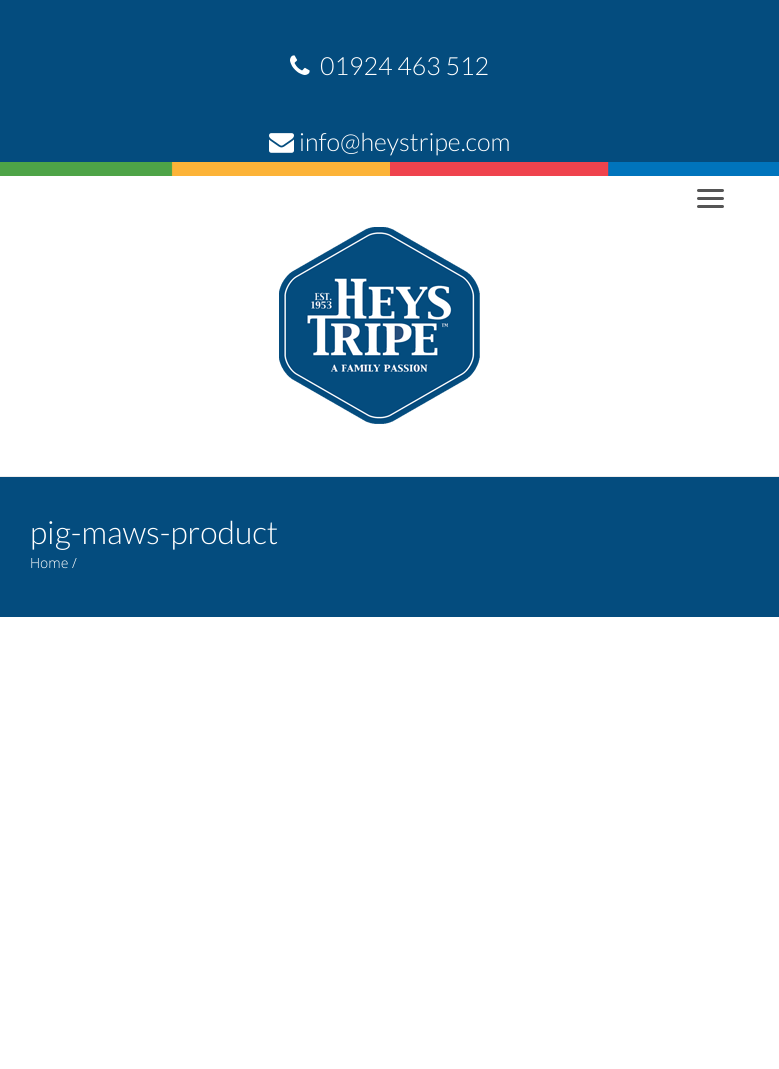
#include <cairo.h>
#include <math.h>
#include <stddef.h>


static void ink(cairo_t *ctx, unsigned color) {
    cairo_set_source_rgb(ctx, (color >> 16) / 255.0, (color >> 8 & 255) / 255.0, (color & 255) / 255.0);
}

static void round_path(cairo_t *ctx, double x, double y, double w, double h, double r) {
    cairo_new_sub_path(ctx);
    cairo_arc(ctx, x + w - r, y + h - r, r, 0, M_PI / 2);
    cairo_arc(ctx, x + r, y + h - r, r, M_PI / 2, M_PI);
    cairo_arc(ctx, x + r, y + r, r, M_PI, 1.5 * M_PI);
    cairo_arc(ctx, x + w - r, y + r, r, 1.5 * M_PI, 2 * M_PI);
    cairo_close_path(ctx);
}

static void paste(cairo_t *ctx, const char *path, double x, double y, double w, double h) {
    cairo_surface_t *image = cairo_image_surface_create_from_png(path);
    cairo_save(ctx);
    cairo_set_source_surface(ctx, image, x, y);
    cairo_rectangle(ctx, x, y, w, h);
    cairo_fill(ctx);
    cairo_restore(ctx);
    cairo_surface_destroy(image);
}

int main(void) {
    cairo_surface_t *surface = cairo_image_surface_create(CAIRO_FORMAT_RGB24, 779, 1069);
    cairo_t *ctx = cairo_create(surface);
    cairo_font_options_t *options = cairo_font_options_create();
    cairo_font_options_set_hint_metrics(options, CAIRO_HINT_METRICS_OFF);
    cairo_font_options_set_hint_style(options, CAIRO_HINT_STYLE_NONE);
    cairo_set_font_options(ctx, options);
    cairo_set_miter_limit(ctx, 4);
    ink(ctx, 0xFFFFFF);
    cairo_paint(ctx);
    ink(ctx, 0x044C7E);
    cairo_rectangle(ctx, 0, 0, 779, 162);
    cairo_fill(ctx);
    paste(ctx, "media/1.png", 0, 162, 779, 14);
    paste(ctx, "media/2.png", 290, 55, 20, 20);
    cairo_select_font_face(ctx, "Lato Light", CAIRO_FONT_SLANT_NORMAL, CAIRO_FONT_WEIGHT_NORMAL);
    cairo_set_font_size(ctx, 25);
    ink(ctx, 0xFFFFFF);
    cairo_move_to(ctx, 320, 75);
    cairo_show_text(ctx, "01924 463 512");
    paste(ctx, "media/3.png", 269, 133, 25, 20);
    cairo_move_to(ctx, 299, 151);
    cairo_show_text(ctx, "info@heystripe.com");
    ink(ctx, 0xEDEDED);
    cairo_rectangle(ctx, 0, 476, 779, 1);
    cairo_fill(ctx);
    ink(ctx, 0x555555);
    round_path(ctx, 697, 189, 27, 3, 1.5);
    cairo_fill(ctx);
    round_path(ctx, 697, 205, 27, 3, 1.5);
    cairo_fill(ctx);
    round_path(ctx, 697, 197, 27, 3, 1.5);
    cairo_fill(ctx);
    paste(ctx, "media/4.png", 279, 227, 201, 197);
    ink(ctx, 0x044C7E);
    cairo_rectangle(ctx, 0, 477, 779, 140);
    cairo_fill(ctx);
    cairo_set_font_size(ctx, 32);
    ink(ctx, 0xFFFFFF);
    cairo_move_to(ctx, 30, 544);
    cairo_show_text(ctx, "pig-maws-product");
    cairo_select_font_face(ctx, "Open Sans Light", CAIRO_FONT_SLANT_NORMAL, CAIRO_FONT_WEIGHT_NORMAL);
    cairo_set_font_size(ctx, 14);
    cairo_move_to(ctx, 30, 568);
    cairo_show_text(ctx, "Home /");
    cairo_surface_write_to_png(surface, "image.png");
    cairo_font_options_destroy(options);
    cairo_destroy(ctx);
    cairo_surface_destroy(surface);
    return 0;
}
